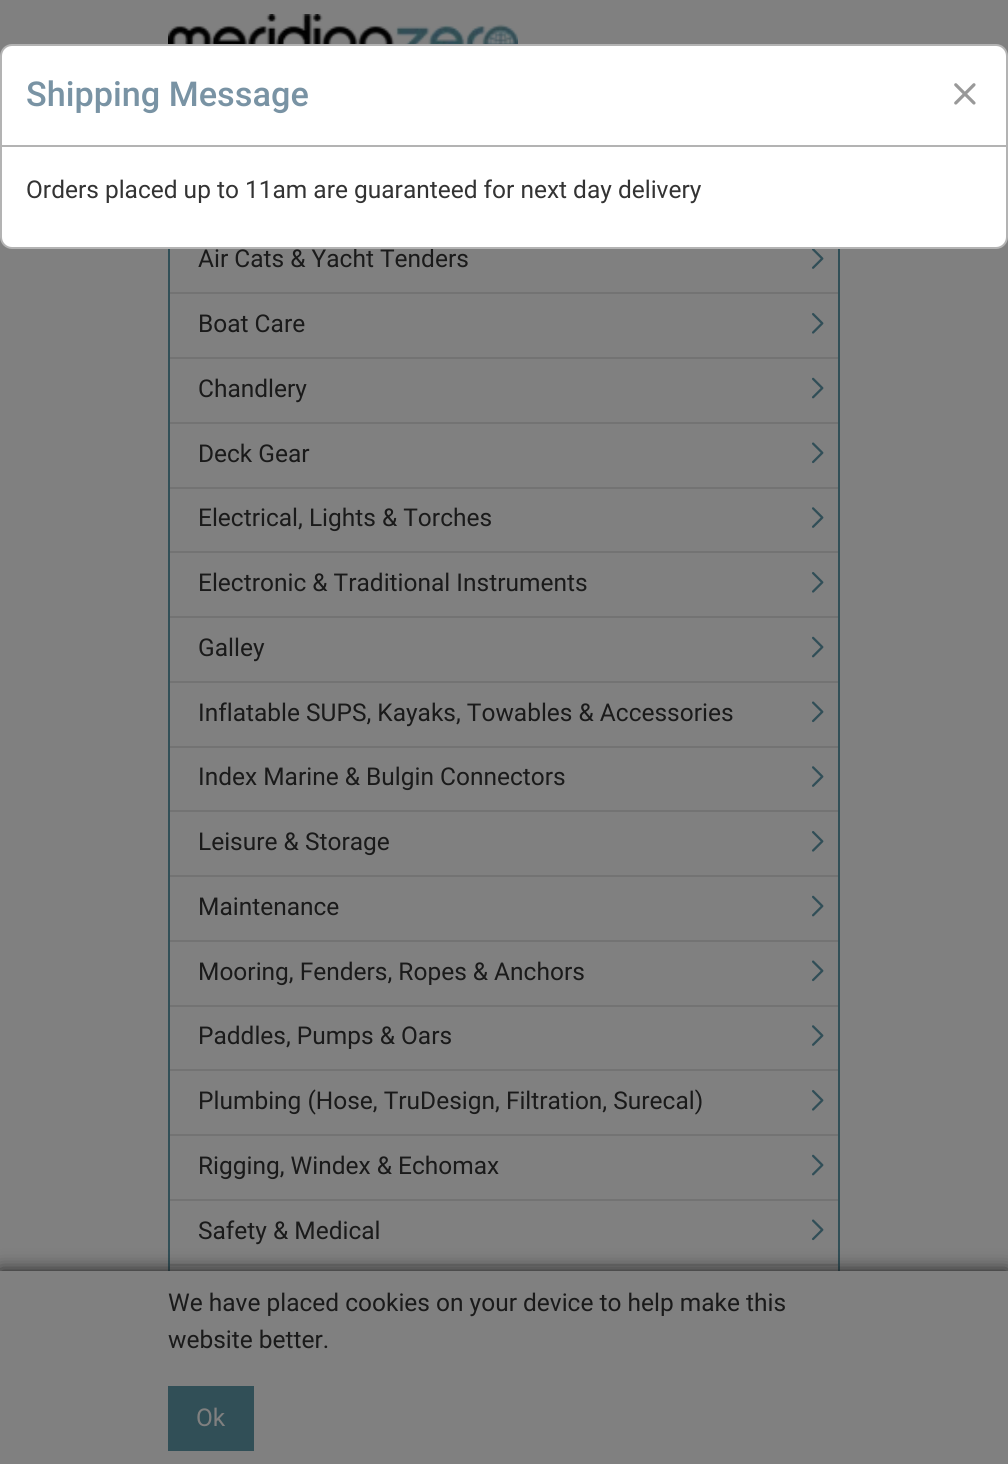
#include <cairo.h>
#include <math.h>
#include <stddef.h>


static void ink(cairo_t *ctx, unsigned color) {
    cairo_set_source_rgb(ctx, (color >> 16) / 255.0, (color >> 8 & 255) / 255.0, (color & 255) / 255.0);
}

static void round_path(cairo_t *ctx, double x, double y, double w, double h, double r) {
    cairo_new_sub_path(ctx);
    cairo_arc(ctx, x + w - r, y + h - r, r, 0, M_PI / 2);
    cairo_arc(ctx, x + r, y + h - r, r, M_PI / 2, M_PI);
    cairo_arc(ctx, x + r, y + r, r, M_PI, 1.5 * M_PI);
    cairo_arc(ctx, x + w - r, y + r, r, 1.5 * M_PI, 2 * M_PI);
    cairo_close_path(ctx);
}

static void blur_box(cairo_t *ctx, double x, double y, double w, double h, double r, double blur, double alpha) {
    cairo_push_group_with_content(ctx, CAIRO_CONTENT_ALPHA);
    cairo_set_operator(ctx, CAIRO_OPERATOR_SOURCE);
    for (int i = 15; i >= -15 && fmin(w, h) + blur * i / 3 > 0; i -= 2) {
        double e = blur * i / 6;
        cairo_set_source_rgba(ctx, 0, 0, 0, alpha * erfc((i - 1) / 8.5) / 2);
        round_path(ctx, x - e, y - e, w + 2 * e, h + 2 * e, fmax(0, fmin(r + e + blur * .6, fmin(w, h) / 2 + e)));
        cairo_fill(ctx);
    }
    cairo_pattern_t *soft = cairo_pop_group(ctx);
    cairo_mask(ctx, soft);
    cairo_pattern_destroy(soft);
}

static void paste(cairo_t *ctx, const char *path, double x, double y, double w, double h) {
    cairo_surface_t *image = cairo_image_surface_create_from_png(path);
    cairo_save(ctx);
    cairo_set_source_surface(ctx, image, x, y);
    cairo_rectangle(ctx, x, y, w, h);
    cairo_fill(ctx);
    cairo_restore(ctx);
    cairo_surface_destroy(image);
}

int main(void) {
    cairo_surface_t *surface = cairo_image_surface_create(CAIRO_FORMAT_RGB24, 1008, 1464);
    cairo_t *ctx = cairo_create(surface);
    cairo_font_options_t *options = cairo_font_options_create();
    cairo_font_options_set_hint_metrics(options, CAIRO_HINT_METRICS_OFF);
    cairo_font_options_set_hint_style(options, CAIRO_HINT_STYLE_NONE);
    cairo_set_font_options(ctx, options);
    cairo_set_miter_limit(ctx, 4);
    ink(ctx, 0x808080);
    cairo_paint(ctx);
    cairo_rectangle(ctx, 169, 153, 670, 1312);
    ink(ctx, 0x314F57);
    cairo_stroke(ctx);
    cairo_select_font_face(ctx, "Roboto", CAIRO_FONT_SLANT_NORMAL, CAIRO_FONT_WEIGHT_NORMAL);
    cairo_set_font_size(ctx, 24.5);
    ink(ctx, 0x1A1A1A);
    cairo_move_to(ctx, 198, 267);
    cairo_show_text(ctx, "Air Cats & Yacht Tenders");
    ink(ctx, 0xFFFFFF);
    round_path(ctx, 1, 45, 1006, 203, 11);
    cairo_fill_preserve(ctx);
    ink(ctx, 0xB3B3B3);
    cairo_stroke(ctx);
    cairo_rectangle(ctx, 2, 145, 1004, 2);
    cairo_fill(ctx);
    cairo_select_font_face(ctx, "Roboto Medium", CAIRO_FONT_SLANT_NORMAL, CAIRO_FONT_WEIGHT_NORMAL);
    cairo_set_font_size(ctx, 34.25);
    ink(ctx, 0x7993A4);
    cairo_move_to(ctx, 26, 106);
    cairo_show_text(ctx, "Shipping Message");
    paste(ctx, "media/1.png", 954, 83, 22, 22);
    cairo_select_font_face(ctx, "Roboto", CAIRO_FONT_SLANT_NORMAL, CAIRO_FONT_WEIGHT_NORMAL);
    cairo_set_font_size(ctx, 24.5);
    ink(ctx, 0x333333);
    cairo_move_to(ctx, 26, 198);
    cairo_show_text(ctx, "Orders placed up to 11am are guaranteed for next day delivery");
    paste(ctx, "media/2.png", 168, 14, 350, 30);
    paste(ctx, "media/3.png", 812, 249, 12, 20);
    ink(ctx, 0x737373);
    cairo_rectangle(ctx, 170, 292, 668, 2);
    cairo_fill(ctx);
    ink(ctx, 0x1A1A1A);
    cairo_move_to(ctx, 198, 332);
    cairo_show_text(ctx, "Boat Care");
    paste(ctx, "media/4.png", 812, 313, 12, 21);
    ink(ctx, 0x737373);
    cairo_rectangle(ctx, 170, 357, 668, 2);
    cairo_fill(ctx);
    ink(ctx, 0x1A1A1A);
    cairo_move_to(ctx, 198, 397);
    cairo_show_text(ctx, "Chandlery");
    paste(ctx, "media/5.png", 812, 377, 12, 22);
    ink(ctx, 0x737373);
    cairo_rectangle(ctx, 170, 422, 668, 2);
    cairo_fill(ctx);
    ink(ctx, 0x1A1A1A);
    cairo_move_to(ctx, 198, 462);
    cairo_show_text(ctx, "Deck Gear");
    paste(ctx, "media/6.png", 812, 442, 12, 22);
    ink(ctx, 0x737373);
    cairo_rectangle(ctx, 170, 487, 668, 2);
    cairo_fill(ctx);
    ink(ctx, 0x1A1A1A);
    cairo_move_to(ctx, 198, 526);
    cairo_show_text(ctx, "Electrical, Lights & Torches");
    paste(ctx, "media/7.png", 812, 507, 12, 21);
    ink(ctx, 0x737373);
    cairo_rectangle(ctx, 170, 551, 668, 2);
    cairo_fill(ctx);
    ink(ctx, 0x1A1A1A);
    cairo_move_to(ctx, 198, 591);
    cairo_show_text(ctx, "Electronic & Traditional Instruments");
    paste(ctx, "media/4.png", 812, 572, 12, 21);
    ink(ctx, 0x737373);
    cairo_rectangle(ctx, 170, 616, 668, 2);
    cairo_fill(ctx);
    ink(ctx, 0x1A1A1A);
    cairo_move_to(ctx, 198, 656);
    cairo_show_text(ctx, "Galley");
    paste(ctx, "media/5.png", 812, 636, 12, 22);
    ink(ctx, 0x737373);
    cairo_rectangle(ctx, 170, 681, 668, 2);
    cairo_fill(ctx);
    ink(ctx, 0x1A1A1A);
    cairo_move_to(ctx, 198, 721);
    cairo_show_text(ctx, "Inflatable SUPS, Kayaks, Towables & Accessories");
    paste(ctx, "media/6.png", 812, 701, 12, 22);
    ink(ctx, 0x737373);
    cairo_rectangle(ctx, 170, 746, 668, 2);
    cairo_fill(ctx);
    ink(ctx, 0x1A1A1A);
    cairo_move_to(ctx, 198, 785);
    cairo_show_text(ctx, "Index Marine & Bulgin Connectors");
    paste(ctx, "media/7.png", 812, 766, 12, 21);
    ink(ctx, 0x737373);
    cairo_rectangle(ctx, 170, 810, 668, 2);
    cairo_fill(ctx);
    ink(ctx, 0x1A1A1A);
    cairo_move_to(ctx, 198, 850);
    cairo_show_text(ctx, "Leisure & Storage");
    paste(ctx, "media/4.png", 812, 831, 12, 21);
    ink(ctx, 0x737373);
    cairo_rectangle(ctx, 170, 875, 668, 2);
    cairo_fill(ctx);
    ink(ctx, 0x1A1A1A);
    cairo_move_to(ctx, 198, 915);
    cairo_show_text(ctx, "Maintenance");
    paste(ctx, "media/5.png", 812, 895, 12, 22);
    ink(ctx, 0x737373);
    cairo_rectangle(ctx, 170, 940, 668, 2);
    cairo_fill(ctx);
    ink(ctx, 0x1A1A1A);
    cairo_move_to(ctx, 198, 980);
    cairo_show_text(ctx, "Mooring, Fenders, Ropes & Anchors");
    paste(ctx, "media/6.png", 812, 960, 12, 22);
    ink(ctx, 0x737373);
    cairo_rectangle(ctx, 170, 1005, 668, 2);
    cairo_fill(ctx);
    ink(ctx, 0x1A1A1A);
    cairo_move_to(ctx, 198, 1044);
    cairo_show_text(ctx, "Paddles, Pumps & Oars");
    paste(ctx, "media/7.png", 812, 1025, 12, 21);
    ink(ctx, 0x737373);
    cairo_rectangle(ctx, 170, 1069, 668, 2);
    cairo_fill(ctx);
    ink(ctx, 0x1A1A1A);
    cairo_move_to(ctx, 198, 1109);
    cairo_show_text(ctx, "Plumbing (Hose, TruDesign, Filtration, Surecal)");
    paste(ctx, "media/4.png", 812, 1090, 12, 21);
    ink(ctx, 0x737373);
    cairo_rectangle(ctx, 170, 1134, 668, 2);
    cairo_fill(ctx);
    ink(ctx, 0x1A1A1A);
    cairo_move_to(ctx, 198, 1174);
    cairo_show_text(ctx, "Rigging, Windex & Echomax");
    paste(ctx, "media/5.png", 812, 1154, 12, 22);
    ink(ctx, 0x737373);
    cairo_rectangle(ctx, 170, 1199, 668, 2);
    cairo_fill(ctx);
    ink(ctx, 0x1A1A1A);
    cairo_move_to(ctx, 198, 1239);
    cairo_show_text(ctx, "Safety & Medical");
    paste(ctx, "media/6.png", 812, 1219, 12, 22);
    ink(ctx, 0x737373);
    cairo_rectangle(ctx, 170, 1264, 668, 2);
    cairo_fill(ctx);
    ink(ctx, 0x1A1A1A);
    blur_box(ctx, 0, 1271, 1008, 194, 0, 9, 1);
    ink(ctx, 0x808080);
    cairo_rectangle(ctx, 0, 1271, 1008, 193);
    cairo_fill(ctx);
    ink(ctx, 0x1A1A1A);
    cairo_move_to(ctx, 168, 1311);
    cairo_show_text(ctx, "We have placed cookies on your device to help make this");
    cairo_move_to(ctx, 168, 1348);
    cairo_show_text(ctx, "website better.");
    ink(ctx, 0x314F57);
    cairo_rectangle(ctx, 168, 1386, 86, 65);
    cairo_fill(ctx);
    ink(ctx, 0x808080);
    cairo_move_to(ctx, 196, 1426);
    cairo_show_text(ctx, "Ok");
    cairo_surface_write_to_png(surface, "image.png");
    cairo_font_options_destroy(options);
    cairo_destroy(ctx);
    cairo_surface_destroy(surface);
    return 0;
}
